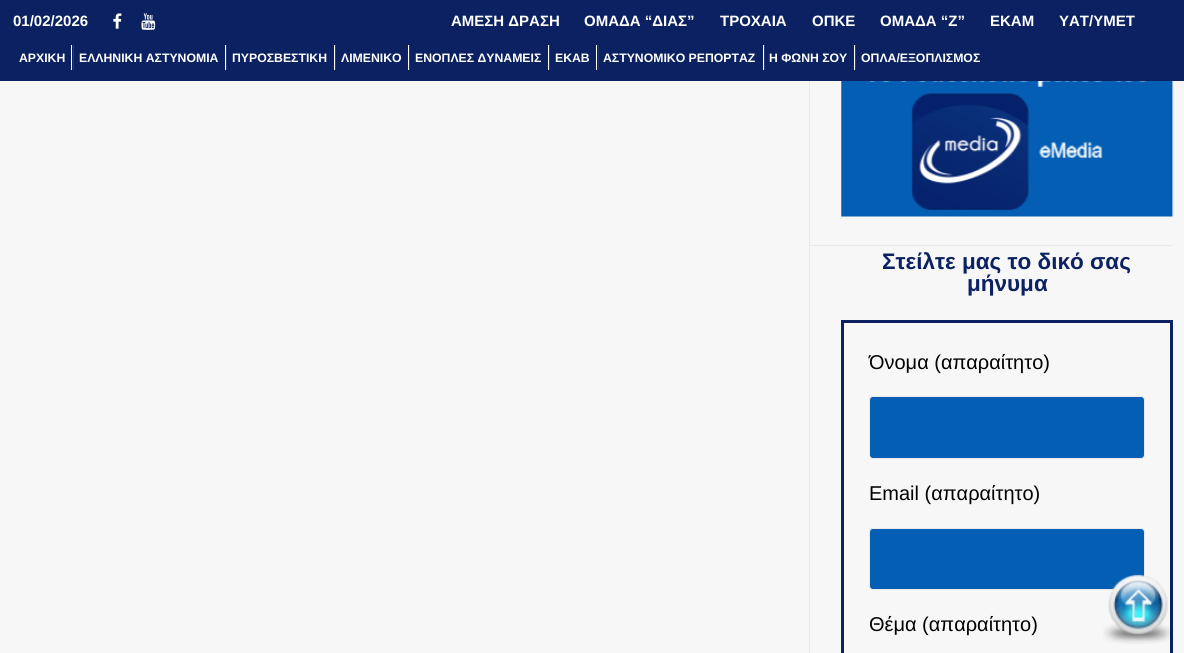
#include <cairo.h>
#include <math.h>
#include <stddef.h>

typedef struct { double x, y; const char *s; } line_t;

static void ink(cairo_t *ctx, unsigned color) {
    cairo_set_source_rgb(ctx, (color >> 16) / 255.0, (color >> 8 & 255) / 255.0, (color & 255) / 255.0);
}

static void round_path(cairo_t *ctx, double x, double y, double w, double h, double r) {
    cairo_new_sub_path(ctx);
    cairo_arc(ctx, x + w - r, y + h - r, r, 0, M_PI / 2);
    cairo_arc(ctx, x + r, y + h - r, r, M_PI / 2, M_PI);
    cairo_arc(ctx, x + r, y + r, r, M_PI, 1.5 * M_PI);
    cairo_arc(ctx, x + w - r, y + r, r, 1.5 * M_PI, 2 * M_PI);
    cairo_close_path(ctx);
}

static void paste(cairo_t *ctx, const char *path, double x, double y, double w, double h) {
    cairo_surface_t *image = cairo_image_surface_create_from_png(path);
    cairo_save(ctx);
    cairo_set_source_surface(ctx, image, x, y);
    cairo_rectangle(ctx, x, y, w, h);
    cairo_fill(ctx);
    cairo_restore(ctx);
    cairo_surface_destroy(image);
}

int main(void) {
    cairo_surface_t *surface = cairo_image_surface_create(CAIRO_FORMAT_RGB24, 1184, 653);
    cairo_t *ctx = cairo_create(surface);
    cairo_font_options_t *options = cairo_font_options_create();
    cairo_font_options_set_hint_metrics(options, CAIRO_HINT_METRICS_OFF);
    cairo_font_options_set_hint_style(options, CAIRO_HINT_STYLE_NONE);
    cairo_set_font_options(ctx, options);
    cairo_set_miter_limit(ctx, 4);
    ink(ctx, 0xF7F7F7);
    cairo_paint(ctx);
    ink(ctx, 0x0B2161);
    cairo_rectangle(ctx, 0, 0, 1184, 81);
    cairo_fill(ctx);
    cairo_select_font_face(ctx, "Liberation Sans", CAIRO_FONT_SLANT_NORMAL, CAIRO_FONT_WEIGHT_BOLD);
    cairo_set_font_size(ctx, 15);
    ink(ctx, 0xFFFFFF);
    cairo_move_to(ctx, 13, 26);
    cairo_show_text(ctx, "01/02/2026");
    paste(ctx, "media/1.png", 113, 13, 9, 16);
    paste(ctx, "media/2.png", 141, 13, 15, 17);
    {
        static const line_t items[] = {
            {451, 26, "ΑΜΕΣΗ ΔΡΑΣΗ"},
            {584, 26, "ΟΜΑΔΑ “ΔΙΑΣ”"},
            {720, 26, "ΤΡΟΧΑΙΑ"},
            {812, 26, "ΟΠΚΕ"},
            {880, 26, "ΟΜΑΔΑ “Ζ”"},
            {990, 26, "ΕΚΑΜ"},
            {1059, 26, "ΥΑΤ/ΥΜΕΤ"},
        };
        for (size_t i = 0; i < sizeof items / sizeof *items; i++) {
            cairo_move_to(ctx, items[i].x, items[i].y);
            cairo_show_text(ctx, items[i].s);
        }
    }
    cairo_set_font_size(ctx, 12.25);
    cairo_move_to(ctx, 19, 62);
    cairo_show_text(ctx, "ΑΡΧΙΚΗ");
    ink(ctx, 0x233771);
    cairo_rectangle(ctx, 73, 45, 1, 25);
    cairo_fill(ctx);
    ink(ctx, 0xFFFFFF);
    cairo_rectangle(ctx, 71, 45, 1, 25);
    cairo_fill(ctx);
    cairo_move_to(ctx, 79, 62);
    cairo_show_text(ctx, "ΕΛΛΗΝΙΚΗ ΑΣΤΥΝΟΜΙΑ");
    ink(ctx, 0x233771);
    cairo_rectangle(ctx, 226, 45, 1, 25);
    cairo_fill(ctx);
    ink(ctx, 0xFFFFFF);
    cairo_rectangle(ctx, 225, 45, 1, 25);
    cairo_fill(ctx);
    cairo_move_to(ctx, 232, 62);
    cairo_show_text(ctx, "ΠΥΡΟΣΒΕΣΤΙΚΗ");
    ink(ctx, 0x233771);
    cairo_rectangle(ctx, 335, 45, 1, 25);
    cairo_fill(ctx);
    ink(ctx, 0xFFFFFF);
    cairo_rectangle(ctx, 334, 45, 1, 25);
    cairo_fill(ctx);
    cairo_move_to(ctx, 341, 62);
    cairo_show_text(ctx, "ΛΙΜΕΝΙΚΟ");
    ink(ctx, 0x233771);
    cairo_rectangle(ctx, 409, 45, 1, 25);
    cairo_fill(ctx);
    ink(ctx, 0xFFFFFF);
    cairo_rectangle(ctx, 408, 45, 1, 25);
    cairo_fill(ctx);
    cairo_move_to(ctx, 415, 62);
    cairo_show_text(ctx, "ΕΝΟΠΛΕΣ ΔΥΝΑΜΕΙΣ");
    ink(ctx, 0x233771);
    cairo_rectangle(ctx, 549, 45, 1, 25);
    cairo_fill(ctx);
    ink(ctx, 0xFFFFFF);
    cairo_rectangle(ctx, 548, 45, 1, 25);
    cairo_fill(ctx);
    cairo_move_to(ctx, 555, 62);
    cairo_show_text(ctx, "ΕΚΑΒ");
    ink(ctx, 0x233771);
    cairo_rectangle(ctx, 598, 45, 1, 25);
    cairo_fill(ctx);
    ink(ctx, 0xFFFFFF);
    cairo_rectangle(ctx, 596, 45, 1, 25);
    cairo_fill(ctx);
    cairo_move_to(ctx, 603, 62);
    cairo_show_text(ctx, "ΑΣΤΥΝΟΜΙΚΟ ΡΕΠΟΡΤΑΖ");
    ink(ctx, 0x233771);
    cairo_rectangle(ctx, 764, 45, 1, 25);
    cairo_fill(ctx);
    ink(ctx, 0xFFFFFF);
    cairo_rectangle(ctx, 763, 45, 1, 25);
    cairo_fill(ctx);
    cairo_move_to(ctx, 769, 62);
    cairo_show_text(ctx, "Η ΦΩΝΗ ΣΟΥ");
    ink(ctx, 0x233771);
    cairo_rectangle(ctx, 855, 45, 1, 25);
    cairo_fill(ctx);
    ink(ctx, 0xFFFFFF);
    cairo_rectangle(ctx, 854, 45, 1, 25);
    cairo_fill(ctx);
    cairo_move_to(ctx, 861, 62);
    cairo_show_text(ctx, "ΟΠΛΑ/ΕΞΟΠΛΙΣΜΟΣ");
    ink(ctx, 0xEAEAEA);
    cairo_rectangle(ctx, 809, 81, 1, 572);
    cairo_fill(ctx);
    cairo_rectangle(ctx, 810, 245, 363, 1);
    cairo_fill(ctx);
    paste(ctx, "media/3.png", 841, 81, 333, 136);
    cairo_set_font_size(ctx, 22.5);
    ink(ctx, 0x0B2161);
    cairo_move_to(ctx, 882, 269);
    cairo_show_text(ctx, "Στείλτε μας το δικό σας");
    cairo_move_to(ctx, 967, 291);
    cairo_show_text(ctx, "μήνυμα");
    cairo_rectangle(ctx, 842.5, 321.5, 329, 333);
    cairo_set_line_width(ctx, 3);
    cairo_stroke(ctx);
    cairo_select_font_face(ctx, "Liberation Sans", CAIRO_FONT_SLANT_NORMAL, CAIRO_FONT_WEIGHT_NORMAL);
    cairo_set_font_size(ctx, 20);
    ink(ctx, 0x000000);
    cairo_move_to(ctx, 869, 369);
    cairo_show_text(ctx, "Όνομα (απαραίτητο)");
    ink(ctx, 0x045FB4);
    round_path(ctx, 869.5, 396.5, 275, 62, 3.5);
    cairo_fill_preserve(ctx);
    ink(ctx, 0xEAEAEA);
    cairo_set_line_width(ctx, 1);
    cairo_stroke(ctx);
    ink(ctx, 0x000000);
    cairo_move_to(ctx, 869, 500);
    cairo_show_text(ctx, "Email (απαραίτητο)");
    ink(ctx, 0x045FB4);
    round_path(ctx, 869.5, 528.5, 275, 61, 3.5);
    cairo_fill_preserve(ctx);
    ink(ctx, 0xEAEAEA);
    cairo_stroke(ctx);
    ink(ctx, 0x000000);
    cairo_move_to(ctx, 869, 631);
    cairo_show_text(ctx, "Θέμα (απαραίτητο)");
    paste(ctx, "media/4.png", 1103, 574, 67, 70);
    cairo_surface_write_to_png(surface, "image.png");
    cairo_font_options_destroy(options);
    cairo_destroy(ctx);
    cairo_surface_destroy(surface);
    return 0;
}
